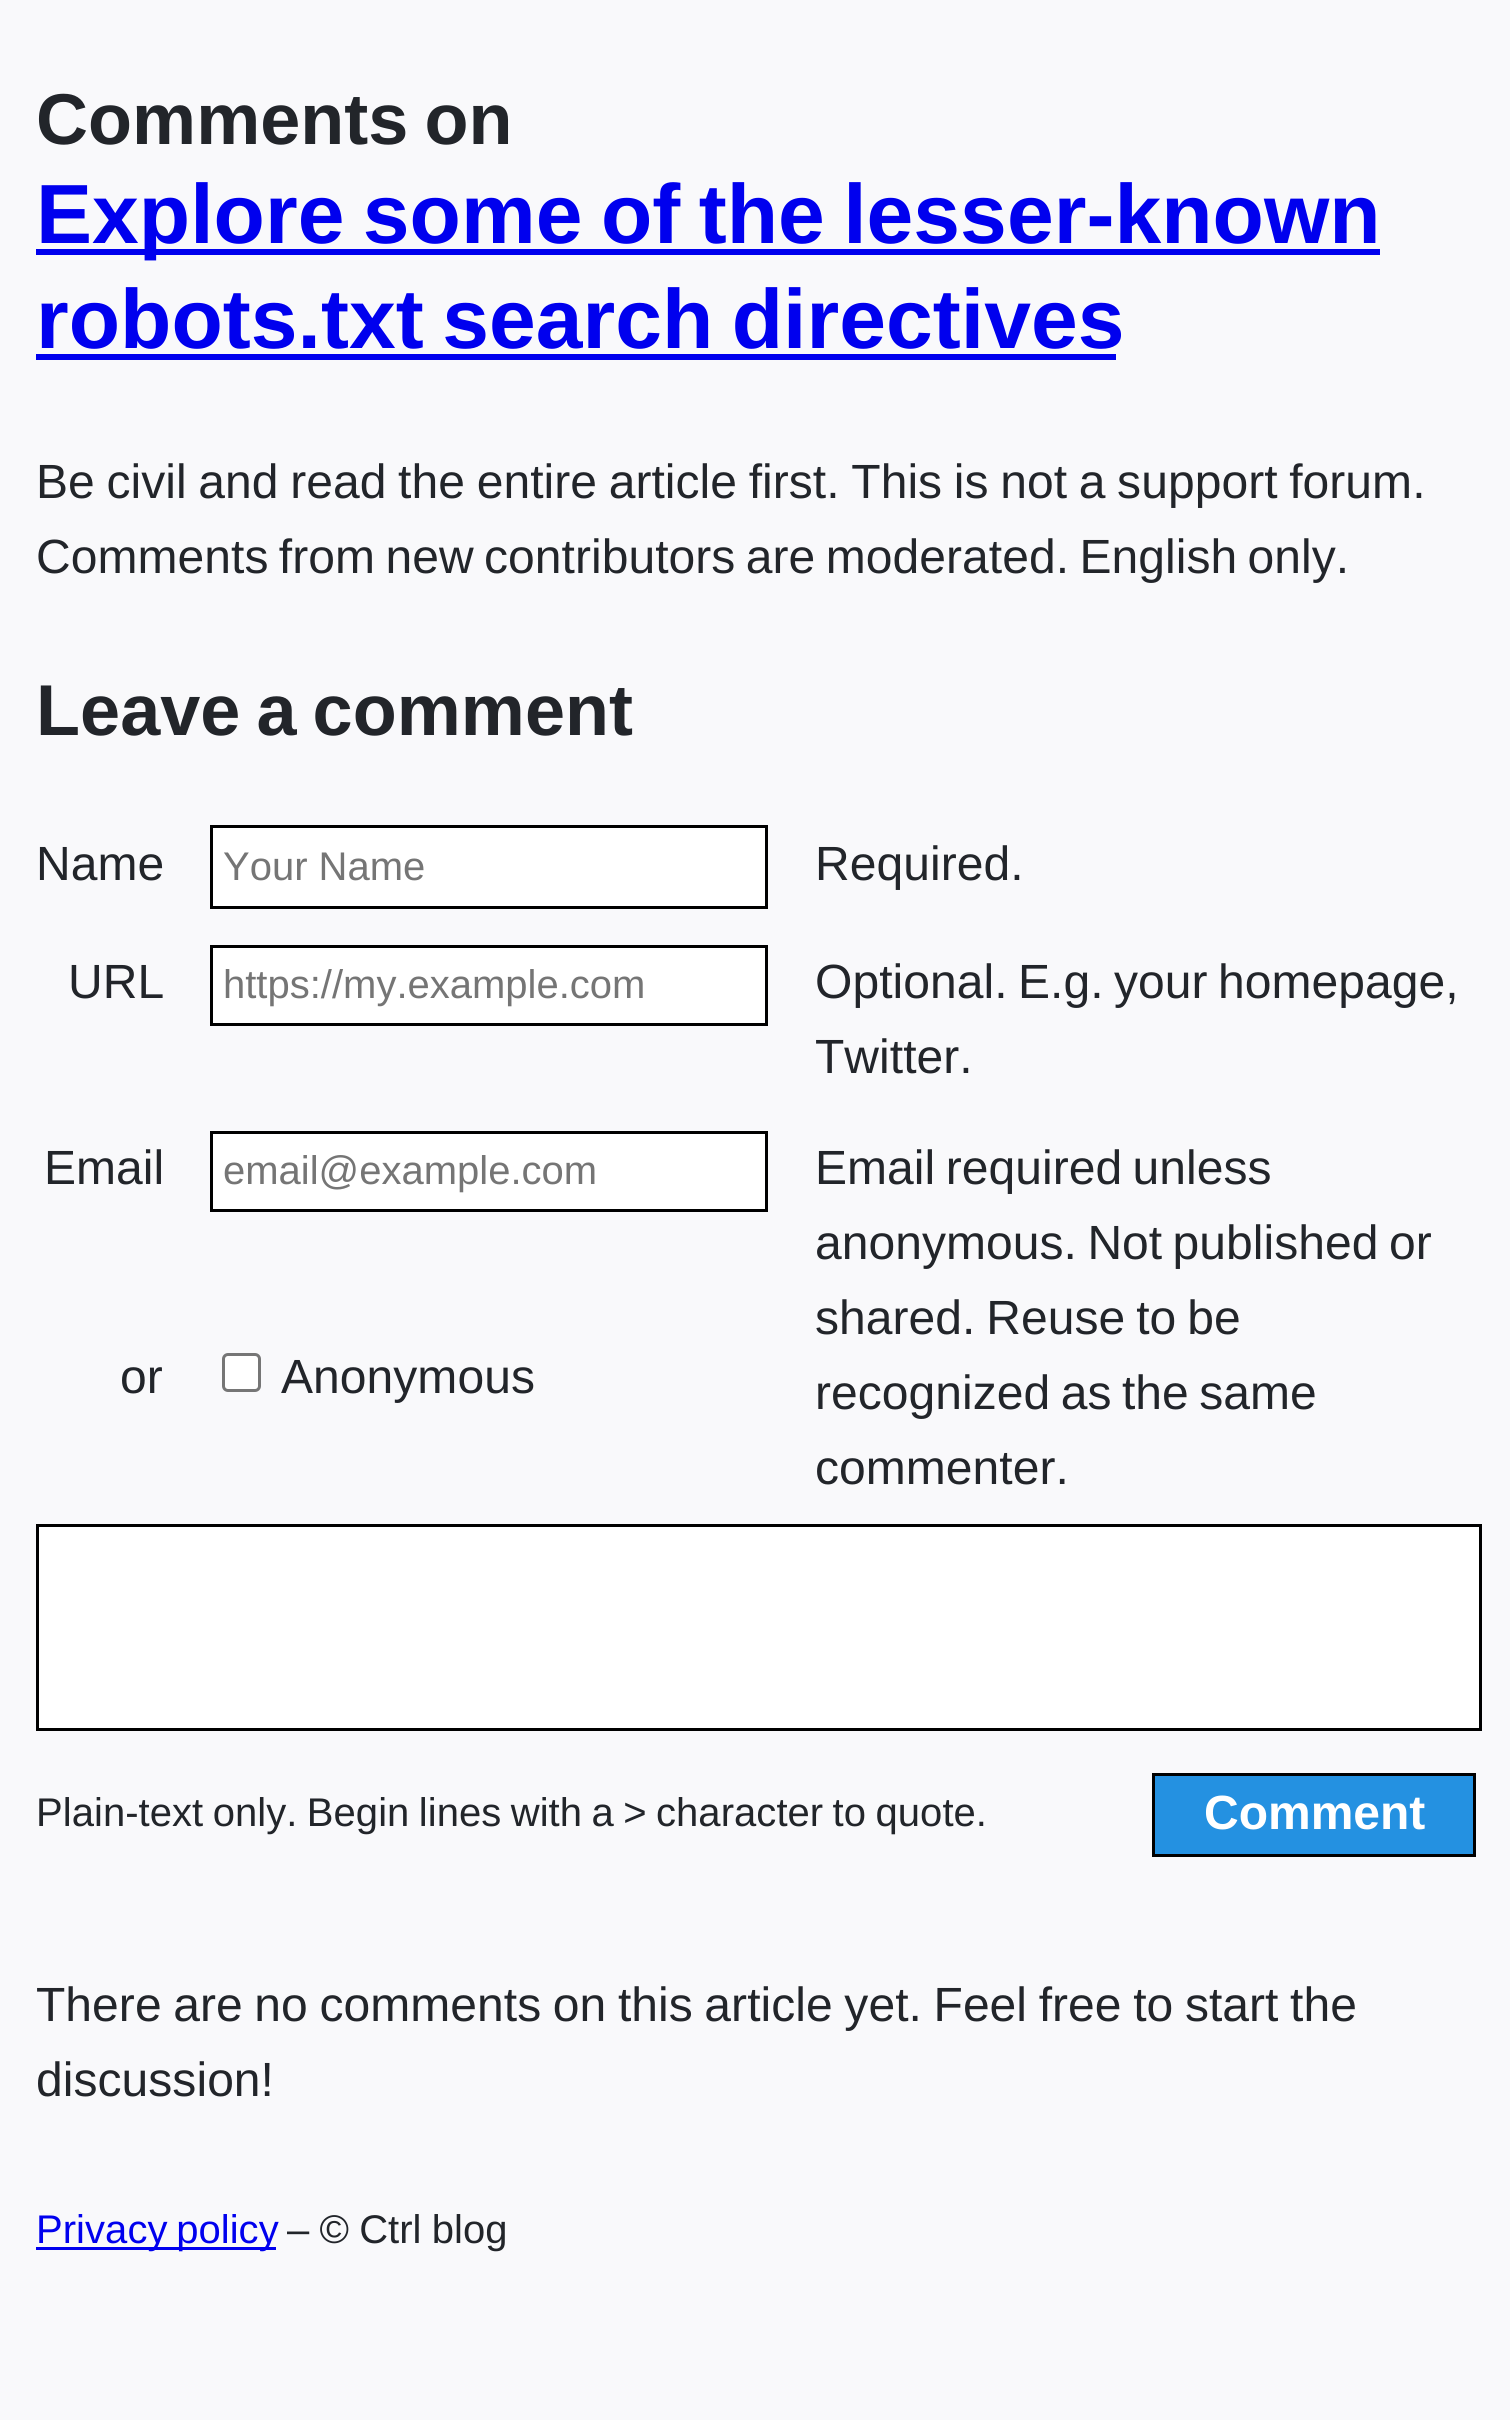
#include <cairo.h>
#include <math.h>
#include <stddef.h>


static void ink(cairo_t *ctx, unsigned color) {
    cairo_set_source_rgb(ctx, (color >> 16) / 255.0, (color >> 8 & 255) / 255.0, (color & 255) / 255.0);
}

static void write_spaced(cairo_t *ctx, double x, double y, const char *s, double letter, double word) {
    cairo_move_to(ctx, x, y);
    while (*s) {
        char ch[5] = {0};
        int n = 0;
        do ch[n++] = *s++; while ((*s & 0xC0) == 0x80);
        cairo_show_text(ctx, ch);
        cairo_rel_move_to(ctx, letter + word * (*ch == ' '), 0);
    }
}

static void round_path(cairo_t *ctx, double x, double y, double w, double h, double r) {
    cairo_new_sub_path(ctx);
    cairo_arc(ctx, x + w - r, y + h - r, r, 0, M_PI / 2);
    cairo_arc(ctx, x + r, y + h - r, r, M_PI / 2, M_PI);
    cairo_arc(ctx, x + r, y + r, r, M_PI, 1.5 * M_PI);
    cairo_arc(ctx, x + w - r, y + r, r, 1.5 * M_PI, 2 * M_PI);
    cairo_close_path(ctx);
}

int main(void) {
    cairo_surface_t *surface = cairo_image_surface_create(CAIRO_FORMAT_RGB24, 1510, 2420);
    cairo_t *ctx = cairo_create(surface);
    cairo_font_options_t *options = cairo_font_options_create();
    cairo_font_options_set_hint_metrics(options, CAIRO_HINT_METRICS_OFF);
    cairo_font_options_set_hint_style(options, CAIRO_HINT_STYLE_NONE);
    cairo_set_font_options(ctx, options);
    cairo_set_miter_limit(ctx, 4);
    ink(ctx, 0xF9F9FB);
    cairo_paint(ctx);
    cairo_select_font_face(ctx, "Liberation Sans", CAIRO_FONT_SLANT_NORMAL, CAIRO_FONT_WEIGHT_BOLD);
    cairo_set_font_size(ctx, 72);
    ink(ctx, 0x22252A);
    write_spaced(ctx, 36, 144, "Comments on", 0.05, -4);
    ink(ctx, 0x0000EE);
    cairo_rectangle(ctx, 36, 249, 1344, 6);
    cairo_fill(ctx);
    cairo_set_font_size(ctx, 84);
    write_spaced(ctx, 36, 243, "Explore some of the lesser-known", 0.05, -5);
    write_spaced(ctx, 36, 348, "robots.txt search directives", 0.05, -5);
    cairo_rectangle(ctx, 36, 354, 1080, 6);
    cairo_fill(ctx);
    cairo_select_font_face(ctx, "Liberation Sans", CAIRO_FONT_SLANT_NORMAL, CAIRO_FONT_WEIGHT_NORMAL);
    cairo_set_font_size(ctx, 48);
    ink(ctx, 0x22252A);
    write_spaced(ctx, 36, 498, "Be civil and read the entire article first. This is not a support forum.", 0.05, -1.75);
    write_spaced(ctx, 36, 573, "Comments from new contributors are moderated. English only.", 0.05, -3);
    cairo_select_font_face(ctx, "Liberation Sans", CAIRO_FONT_SLANT_NORMAL, CAIRO_FONT_WEIGHT_BOLD);
    cairo_set_font_size(ctx, 72);
    write_spaced(ctx, 36, 735, "Leave a comment", 0.05, -4);
    cairo_select_font_face(ctx, "Liberation Sans", CAIRO_FONT_SLANT_NORMAL, CAIRO_FONT_WEIGHT_NORMAL);
    cairo_set_font_size(ctx, 48);
    write_spaced(ctx, 36, 880, "Name", 0.05, 0);
    ink(ctx, 0xFFFFFF);
    cairo_rectangle(ctx, 211.5, 826.5, 555, 81);
    cairo_fill_preserve(ctx);
    ink(ctx, 0x000000);
    cairo_set_line_width(ctx, 3);
    cairo_stroke(ctx);
    cairo_set_font_size(ctx, 40);
    ink(ctx, 0x757575);
    cairo_move_to(ctx, 223, 880);
    cairo_show_text(ctx, "Your Name");
    cairo_set_font_size(ctx, 48);
    ink(ctx, 0x22252A);
    write_spaced(ctx, 815, 880, "Required.", 0.05, 0);
    write_spaced(ctx, 68, 998, "URL", 0.05, 0);
    ink(ctx, 0xFFFFFF);
    cairo_rectangle(ctx, 211.5, 946.5, 555, 78);
    cairo_fill_preserve(ctx);
    ink(ctx, 0x000000);
    cairo_stroke(ctx);
    cairo_set_font_size(ctx, 40);
    ink(ctx, 0x757575);
    cairo_move_to(ctx, 223, 998);
    cairo_show_text(ctx, "https://my.example.com");
    cairo_set_font_size(ctx, 48);
    ink(ctx, 0x22252A);
    write_spaced(ctx, 815, 998, "Optional. E.g. your homepage,", 0.05, -3);
    write_spaced(ctx, 815, 1073, "Twitter.", 0.05, 0);
    write_spaced(ctx, 44, 1184, "Email", 0.05, 0);
    ink(ctx, 0xFFFFFF);
    cairo_rectangle(ctx, 211.5, 1132.5, 555, 78);
    cairo_fill_preserve(ctx);
    ink(ctx, 0x000000);
    cairo_stroke(ctx);
    cairo_set_font_size(ctx, 40);
    ink(ctx, 0x757575);
    cairo_move_to(ctx, 223, 1184);
    cairo_show_text(ctx, "email@example.com");
    cairo_set_font_size(ctx, 48);
    ink(ctx, 0x22252A);
    write_spaced(ctx, 815, 1184, "Email required unless", 0.05, -3);
    write_spaced(ctx, 815, 1259, "anonymous. Not published or", 0.05, -3);
    write_spaced(ctx, 815, 1334, "shared. Reuse to be", 0.05, -2.5);
    write_spaced(ctx, 815, 1409, "recognized as the same", 0.05, -3);
    write_spaced(ctx, 815, 1484, "commenter.", 0.05, 0);
    write_spaced(ctx, 120, 1393, "or", 0.05, 0);
    ink(ctx, 0xFFFFFF);
    round_path(ctx, 223.5, 1354.5, 36, 36, 4.5);
    cairo_fill_preserve(ctx);
    ink(ctx, 0x767676);
    cairo_stroke(ctx);
    ink(ctx, 0x22252A);
    write_spaced(ctx, 281, 1393, "Anonymous", 0.05, 0);
    ink(ctx, 0xFFFFFF);
    cairo_rectangle(ctx, 37.5, 1525.5, 1443, 204);
    cairo_fill_preserve(ctx);
    ink(ctx, 0x000000);
    cairo_stroke(ctx);
    cairo_set_font_size(ctx, 40);
    ink(ctx, 0x22252A);
    write_spaced(ctx, 36, 1826, "Plain-text only. Begin lines with a > character to quote.", 0.05, -1.75);
    ink(ctx, 0x2491E1);
    cairo_rectangle(ctx, 1153.5, 1774.5, 321, 81);
    cairo_fill_preserve(ctx);
    ink(ctx, 0x000000);
    cairo_stroke(ctx);
    cairo_select_font_face(ctx, "Liberation Sans", CAIRO_FONT_SLANT_NORMAL, CAIRO_FONT_WEIGHT_BOLD);
    cairo_set_font_size(ctx, 48);
    ink(ctx, 0xFFFFFF);
    cairo_move_to(ctx, 1204, 1829);
    cairo_show_text(ctx, "Comment");
    cairo_select_font_face(ctx, "Liberation Sans", CAIRO_FONT_SLANT_NORMAL, CAIRO_FONT_WEIGHT_NORMAL);
    ink(ctx, 0x22252A);
    write_spaced(ctx, 36, 2021, "There are no comments on this article yet. Feel free to start the", 0.05, -1.8);
    write_spaced(ctx, 36, 2096, "discussion!", 0.05, 0);
    ink(ctx, 0x0000EE);
    cairo_rectangle(ctx, 36, 2247, 240, 3);
    cairo_fill(ctx);
    cairo_set_font_size(ctx, 40);
    write_spaced(ctx, 36, 2243, "Privacy policy", 0.05, -2.5);
    ink(ctx, 0x22252A);
    write_spaced(ctx, 287, 2243, "– © Ctrl blog", 0.05, -1);
    cairo_surface_write_to_png(surface, "image.png");
    cairo_font_options_destroy(options);
    cairo_destroy(ctx);
    cairo_surface_destroy(surface);
    return 0;
}
